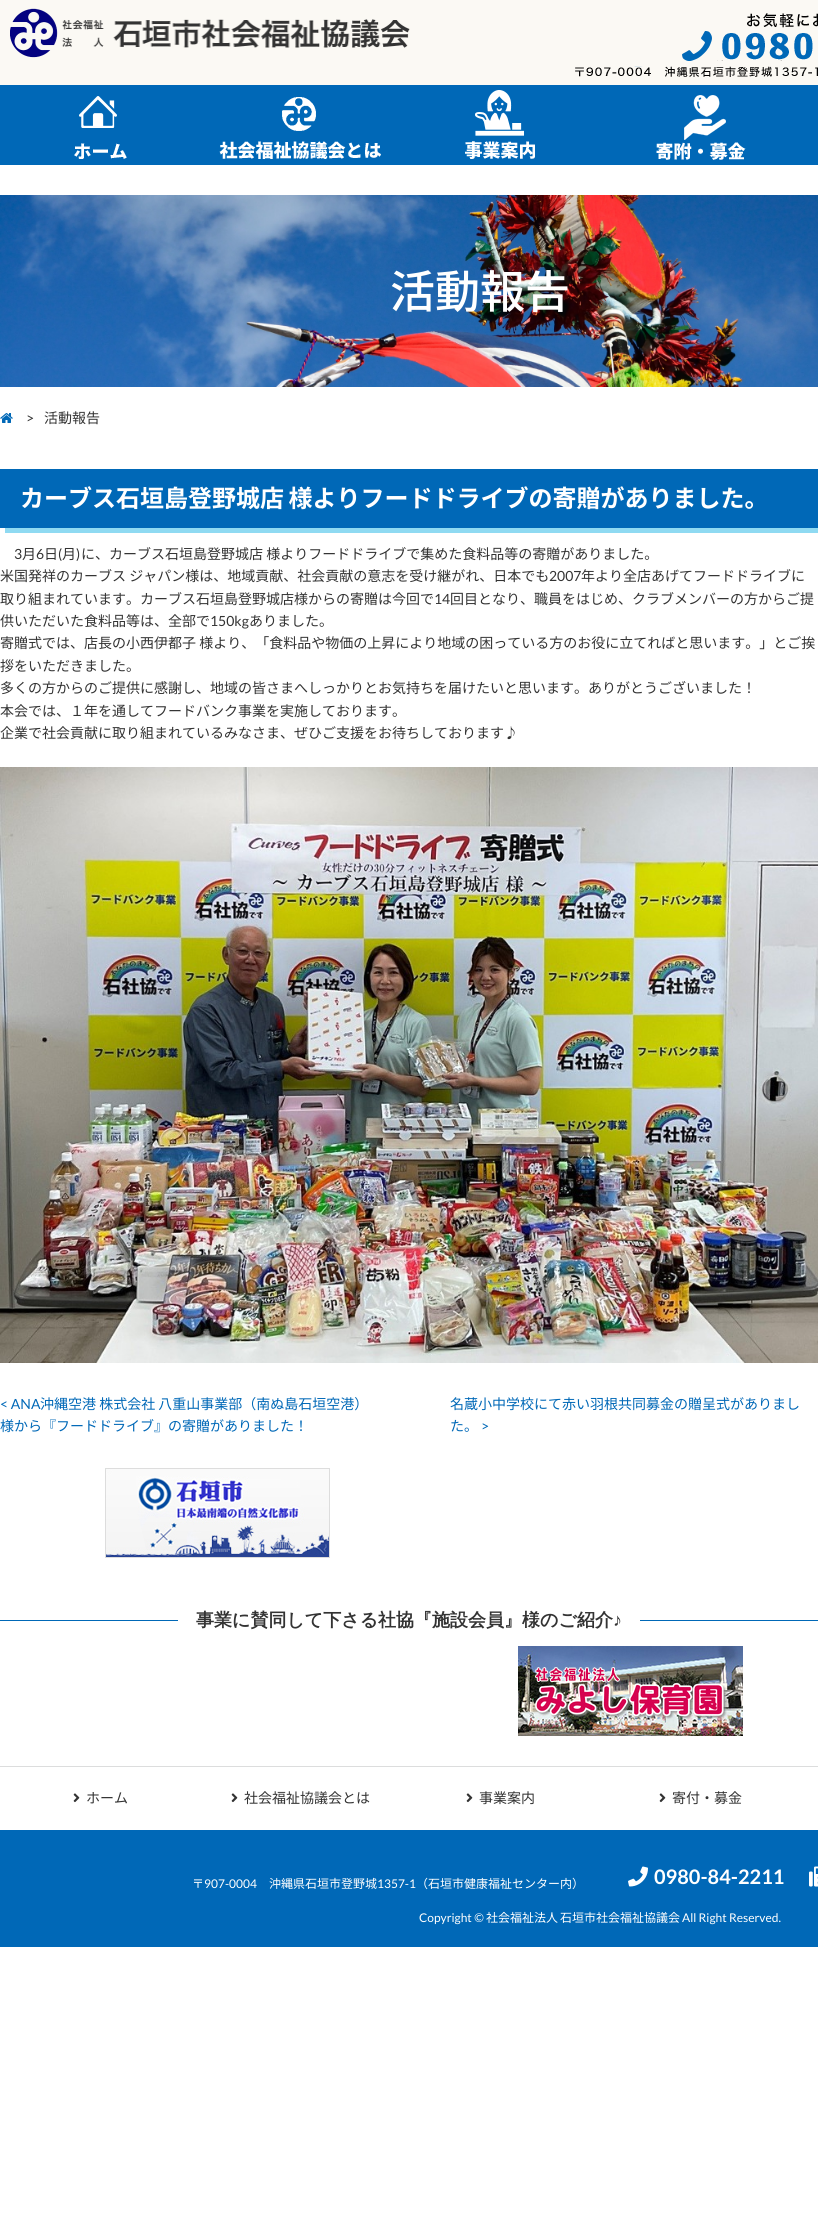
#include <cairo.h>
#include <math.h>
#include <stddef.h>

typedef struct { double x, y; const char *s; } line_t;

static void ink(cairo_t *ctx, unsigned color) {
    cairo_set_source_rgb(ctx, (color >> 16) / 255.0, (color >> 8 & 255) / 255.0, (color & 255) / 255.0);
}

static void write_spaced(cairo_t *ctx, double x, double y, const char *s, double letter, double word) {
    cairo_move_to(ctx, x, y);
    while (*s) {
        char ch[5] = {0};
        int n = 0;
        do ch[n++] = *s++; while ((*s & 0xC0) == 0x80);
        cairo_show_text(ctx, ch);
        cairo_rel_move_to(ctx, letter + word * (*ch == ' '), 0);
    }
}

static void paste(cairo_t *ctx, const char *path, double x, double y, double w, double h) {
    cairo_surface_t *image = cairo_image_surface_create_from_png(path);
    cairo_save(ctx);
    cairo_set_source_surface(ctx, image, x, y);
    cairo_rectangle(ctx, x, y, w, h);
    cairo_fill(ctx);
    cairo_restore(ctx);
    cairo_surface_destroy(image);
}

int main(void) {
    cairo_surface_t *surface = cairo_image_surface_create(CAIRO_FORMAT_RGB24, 818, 2223);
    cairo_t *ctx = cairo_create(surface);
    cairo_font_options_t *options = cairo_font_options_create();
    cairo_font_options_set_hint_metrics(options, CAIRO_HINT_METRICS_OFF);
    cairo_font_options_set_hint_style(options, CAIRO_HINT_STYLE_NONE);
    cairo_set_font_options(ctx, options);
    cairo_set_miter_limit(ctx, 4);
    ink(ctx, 0xFFFFFF);
    cairo_paint(ctx);
    ink(ctx, 0xFBF9F4);
    cairo_rectangle(ctx, 0, 0, 818, 85);
    cairo_fill(ctx);
    paste(ctx, "media/1.png", 10, 8, 400, 50);
    paste(ctx, "media/2.png", 575, 13, 243, 64);
    ink(ctx, 0x0068B7);
    cairo_rectangle(ctx, 0, 85, 818, 80);
    cairo_fill(ctx);
    paste(ctx, "media/3.png", 74, 96, 53, 63);
    paste(ctx, "media/4.png", 219, 97, 162, 62);
    paste(ctx, "media/5.png", 465, 90, 70, 69);
    paste(ctx, "media/6.png", 656, 95, 90, 65);
    paste(ctx, "media/7.png", 0, 195, 818, 192);
    cairo_select_font_face(ctx, "Noto Sans JP Medium", CAIRO_FONT_SLANT_NORMAL, CAIRO_FONT_WEIGHT_NORMAL);
    cairo_set_font_size(ctx, 45);
    ink(ctx, 0xFFFFFF);
    cairo_move_to(ctx, 390, 308);
    cairo_show_text(ctx, "活動報告");
    paste(ctx, "media/8.png", 0, 413, 13, 10);
    cairo_select_font_face(ctx, "Lato", CAIRO_FONT_SLANT_NORMAL, CAIRO_FONT_WEIGHT_NORMAL);
    cairo_set_font_size(ctx, 14);
    ink(ctx, 0x333333);
    cairo_move_to(ctx, 26, 423);
    cairo_show_text(ctx, ">");
    cairo_select_font_face(ctx, "Noto Sans JP", CAIRO_FONT_SLANT_NORMAL, CAIRO_FONT_WEIGHT_NORMAL);
    cairo_move_to(ctx, 44, 423);
    cairo_show_text(ctx, "活動報告");
    ink(ctx, 0x8FDAF2);
    cairo_new_path(ctx);
    cairo_move_to(ctx, 5, 528);
    cairo_line_to(ctx, 5, 533);
    cairo_line_to(ctx, 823, 533);
    cairo_line_to(ctx, 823, 474);
    cairo_line_to(ctx, 818, 474);
    cairo_line_to(ctx, 818, 528);
    cairo_close_path(ctx);
    cairo_fill(ctx);
    ink(ctx, 0x0068B7);
    cairo_rectangle(ctx, 0, 469, 818, 59);
    cairo_fill(ctx);
    cairo_select_font_face(ctx, "Noto Sans JP", CAIRO_FONT_SLANT_NORMAL, CAIRO_FONT_WEIGHT_BOLD);
    cairo_set_font_size(ctx, 24);
    ink(ctx, 0xFFFFFF);
    write_spaced(ctx, 20, 507, "カーブス石垣島登野城店 様よりフードドライブの寄贈がありました。", 0, -1);
    cairo_select_font_face(ctx, "Lato", CAIRO_FONT_SLANT_NORMAL, CAIRO_FONT_WEIGHT_NORMAL);
    cairo_set_font_size(ctx, 14);
    ink(ctx, 0x333333);
    cairo_move_to(ctx, 14, 559);
    cairo_show_text(ctx, "3");
    cairo_select_font_face(ctx, "Noto Sans JP", CAIRO_FONT_SLANT_NORMAL, CAIRO_FONT_WEIGHT_NORMAL);
    cairo_move_to(ctx, 22, 559);
    cairo_show_text(ctx, "月");
    cairo_select_font_face(ctx, "Lato", CAIRO_FONT_SLANT_NORMAL, CAIRO_FONT_WEIGHT_NORMAL);
    cairo_move_to(ctx, 36, 559);
    cairo_show_text(ctx, "6");
    cairo_select_font_face(ctx, "Noto Sans JP", CAIRO_FONT_SLANT_NORMAL, CAIRO_FONT_WEIGHT_NORMAL);
    cairo_move_to(ctx, 44, 559);
    cairo_show_text(ctx, "日");
    cairo_select_font_face(ctx, "Lato", CAIRO_FONT_SLANT_NORMAL, CAIRO_FONT_WEIGHT_NORMAL);
    cairo_move_to(ctx, 58, 559);
    cairo_show_text(ctx, "(");
    cairo_select_font_face(ctx, "Noto Sans JP", CAIRO_FONT_SLANT_NORMAL, CAIRO_FONT_WEIGHT_NORMAL);
    cairo_move_to(ctx, 62, 559);
    cairo_show_text(ctx, "月");
    cairo_select_font_face(ctx, "Lato", CAIRO_FONT_SLANT_NORMAL, CAIRO_FONT_WEIGHT_NORMAL);
    cairo_move_to(ctx, 76, 559);
    cairo_show_text(ctx, ")");
    cairo_select_font_face(ctx, "Noto Sans JP", CAIRO_FONT_SLANT_NORMAL, CAIRO_FONT_WEIGHT_NORMAL);
    cairo_move_to(ctx, 81, 559);
    cairo_show_text(ctx, "に、カーブス石垣島登野城店 様よりフードドライブで集めた食料品等の寄贈がありました。");
    cairo_move_to(ctx, 0, 581);
    cairo_show_text(ctx, "米国発祥のカーブス ジャパン様は、地域貢献、社会貢献の意志を受け継がれ、日本でも");
    cairo_select_font_face(ctx, "Lato", CAIRO_FONT_SLANT_NORMAL, CAIRO_FONT_WEIGHT_NORMAL);
    cairo_move_to(ctx, 549, 581);
    cairo_show_text(ctx, "2007");
    cairo_select_font_face(ctx, "Noto Sans JP", CAIRO_FONT_SLANT_NORMAL, CAIRO_FONT_WEIGHT_NORMAL);
    cairo_move_to(ctx, 581, 581);
    cairo_show_text(ctx, "年より全店あげてフードドライブに");
    cairo_move_to(ctx, 0, 604);
    cairo_show_text(ctx, "取り組まれています。カーブス石垣島登野城店様からの寄贈は今回で");
    cairo_select_font_face(ctx, "Lato", CAIRO_FONT_SLANT_NORMAL, CAIRO_FONT_WEIGHT_NORMAL);
    cairo_move_to(ctx, 434, 604);
    cairo_show_text(ctx, "14");
    cairo_select_font_face(ctx, "Noto Sans JP", CAIRO_FONT_SLANT_NORMAL, CAIRO_FONT_WEIGHT_NORMAL);
    cairo_move_to(ctx, 450, 604);
    cairo_show_text(ctx, "回目となり、職員をはじめ、クラブメンバーの方からご提");
    cairo_move_to(ctx, 0, 626);
    cairo_show_text(ctx, "供いただいた食料品等は、全部で");
    cairo_select_font_face(ctx, "Lato", CAIRO_FONT_SLANT_NORMAL, CAIRO_FONT_WEIGHT_NORMAL);
    cairo_move_to(ctx, 210, 626);
    cairo_show_text(ctx, "150kg");
    cairo_select_font_face(ctx, "Noto Sans JP", CAIRO_FONT_SLANT_NORMAL, CAIRO_FONT_WEIGHT_NORMAL);
    {
        static const line_t items[] = {
            {249, 626, "ありました。"},
            {0, 648, "寄贈式では、店長の小西伊都子 様より、「食料品や物価の上昇により地域の困っている方のお役に立てればと思います。」とご挨"},
            {0, 671, "拶をいただきました。"},
            {0, 693, "多くの方からのご提供に感謝し、地域の皆さまへしっかりとお気持ちを届けたいと思います。ありがとうございました！"},
            {0, 716, "本会では、１年を通してフードバンク事業を実施しております。"},
            {0, 738, "企業で社会貢献に取り組まれているみなさま、ぜひご支援をお待ちしております♪"},
        };
        for (size_t i = 0; i < sizeof items / sizeof *items; i++) {
            cairo_move_to(ctx, items[i].x, items[i].y);
            cairo_show_text(ctx, items[i].s);
        }
    }
    paste(ctx, "media/9.png", 0, 767, 818, 596);
    cairo_select_font_face(ctx, "Lato", CAIRO_FONT_SLANT_NORMAL, CAIRO_FONT_WEIGHT_NORMAL);
    ink(ctx, 0x0068B7);
    cairo_move_to(ctx, 0, 1409);
    cairo_show_text(ctx, "< ANA");
    cairo_select_font_face(ctx, "Noto Sans JP", CAIRO_FONT_SLANT_NORMAL, CAIRO_FONT_WEIGHT_NORMAL);
    {
        static const line_t items[] = {
            {40, 1409, "沖縄空港 株式会社 八重山事業部（南ぬ島石垣空港）"},
            {0, 1431, "様から『フードドライブ』の寄贈がありました！"},
            {450, 1409, "名蔵小中学校にて赤い羽根共同募金の贈呈式がありまし"},
            {450, 1431, "た。"},
        };
        for (size_t i = 0; i < sizeof items / sizeof *items; i++) {
            cairo_move_to(ctx, items[i].x, items[i].y);
            cairo_show_text(ctx, items[i].s);
        }
    }
    cairo_select_font_face(ctx, "Lato", CAIRO_FONT_SLANT_NORMAL, CAIRO_FONT_WEIGHT_NORMAL);
    cairo_move_to(ctx, 481, 1431);
    cairo_show_text(ctx, ">");
    paste(ctx, "media/10.png", 105, 1468, 225, 90);
    cairo_rectangle(ctx, 0, 1620, 818, 1);
    cairo_fill(ctx);
    ink(ctx, 0xFFFFFF);
    cairo_rectangle(ctx, 178, 1620, 462, 1);
    cairo_fill(ctx);
    cairo_select_font_face(ctx, "WenQuanYi Zen Hei", CAIRO_FONT_SLANT_NORMAL, CAIRO_FONT_WEIGHT_BOLD);
    cairo_set_font_size(ctx, 18);
    ink(ctx, 0x333333);
    cairo_move_to(ctx, 196, 1626);
    cairo_show_text(ctx, "事業に賛同して下さる社協『施設会員』様のご紹介");
    cairo_select_font_face(ctx, "Liberation Sans", CAIRO_FONT_SLANT_NORMAL, CAIRO_FONT_WEIGHT_BOLD);
    cairo_move_to(ctx, 613, 1626);
    cairo_show_text(ctx, "♪");
    paste(ctx, "media/11.png", 518, 1646, 225, 90);
    ink(ctx, 0xDCDDDD);
    cairo_rectangle(ctx, 0, 1766, 818, 1);
    cairo_fill(ctx);
    paste(ctx, "media/12.png", 73, 1793, 7, 10);
    cairo_select_font_face(ctx, "Noto Sans JP", CAIRO_FONT_SLANT_NORMAL, CAIRO_FONT_WEIGHT_NORMAL);
    cairo_set_font_size(ctx, 14);
    ink(ctx, 0x333333);
    cairo_move_to(ctx, 86, 1803);
    cairo_show_text(ctx, "ホーム");
    paste(ctx, "media/12.png", 231, 1793, 7, 10);
    cairo_move_to(ctx, 244, 1803);
    cairo_show_text(ctx, "社会福祉協議会とは");
    paste(ctx, "media/12.png", 466, 1793, 7, 10);
    cairo_move_to(ctx, 479, 1803);
    cairo_show_text(ctx, "事業案内");
    paste(ctx, "media/12.png", 659, 1793, 7, 10);
    cairo_move_to(ctx, 672, 1803);
    cairo_show_text(ctx, "寄付・募金");
    ink(ctx, 0x0068B7);
    cairo_rectangle(ctx, 0, 1830, 818, 117);
    cairo_fill(ctx);
    cairo_set_font_size(ctx, 12);
    ink(ctx, 0xFFFFFF);
    cairo_move_to(ctx, 192, 1888);
    cairo_show_text(ctx, "〒");
    cairo_select_font_face(ctx, "Lato", CAIRO_FONT_SLANT_NORMAL, CAIRO_FONT_WEIGHT_NORMAL);
    cairo_move_to(ctx, 204, 1888);
    cairo_show_text(ctx, "907-0004");
    cairo_select_font_face(ctx, "Noto Sans JP", CAIRO_FONT_SLANT_NORMAL, CAIRO_FONT_WEIGHT_NORMAL);
    cairo_move_to(ctx, 269, 1888);
    cairo_show_text(ctx, "沖縄県石垣市登野城");
    cairo_select_font_face(ctx, "Lato", CAIRO_FONT_SLANT_NORMAL, CAIRO_FONT_WEIGHT_NORMAL);
    cairo_move_to(ctx, 377, 1888);
    cairo_show_text(ctx, "1357-1");
    cairo_select_font_face(ctx, "Noto Sans JP", CAIRO_FONT_SLANT_NORMAL, CAIRO_FONT_WEIGHT_NORMAL);
    cairo_move_to(ctx, 416, 1888);
    cairo_show_text(ctx, "（石垣市健康福祉センター内）");
    paste(ctx, "media/13.png", 628, 1866, 20, 21);
    cairo_select_font_face(ctx, "Lato", CAIRO_FONT_SLANT_NORMAL, CAIRO_FONT_WEIGHT_BOLD);
    cairo_set_font_size(ctx, 20);
    cairo_move_to(ctx, 654, 1884);
    cairo_show_text(ctx, "0980-84-2211");
    paste(ctx, "media/14.png", 809, 1866, 9, 21);
    cairo_select_font_face(ctx, "Lato", CAIRO_FONT_SLANT_NORMAL, CAIRO_FONT_WEIGHT_NORMAL);
    cairo_set_font_size(ctx, 12);
    cairo_move_to(ctx, 419, 1922);
    cairo_show_text(ctx, "Copyright ©");
    cairo_select_font_face(ctx, "Noto Sans JP", CAIRO_FONT_SLANT_NORMAL, CAIRO_FONT_WEIGHT_NORMAL);
    cairo_move_to(ctx, 486, 1922);
    cairo_show_text(ctx, "社会福祉法人");
    cairo_move_to(ctx, 560, 1922);
    cairo_show_text(ctx, "石垣市社会福祉協議会");
    cairo_select_font_face(ctx, "Lato", CAIRO_FONT_SLANT_NORMAL, CAIRO_FONT_WEIGHT_NORMAL);
    cairo_move_to(ctx, 682, 1922);
    cairo_show_text(ctx, "All Right Reserved.");
    cairo_surface_write_to_png(surface, "image.png");
    cairo_font_options_destroy(options);
    cairo_destroy(ctx);
    cairo_surface_destroy(surface);
    return 0;
}
